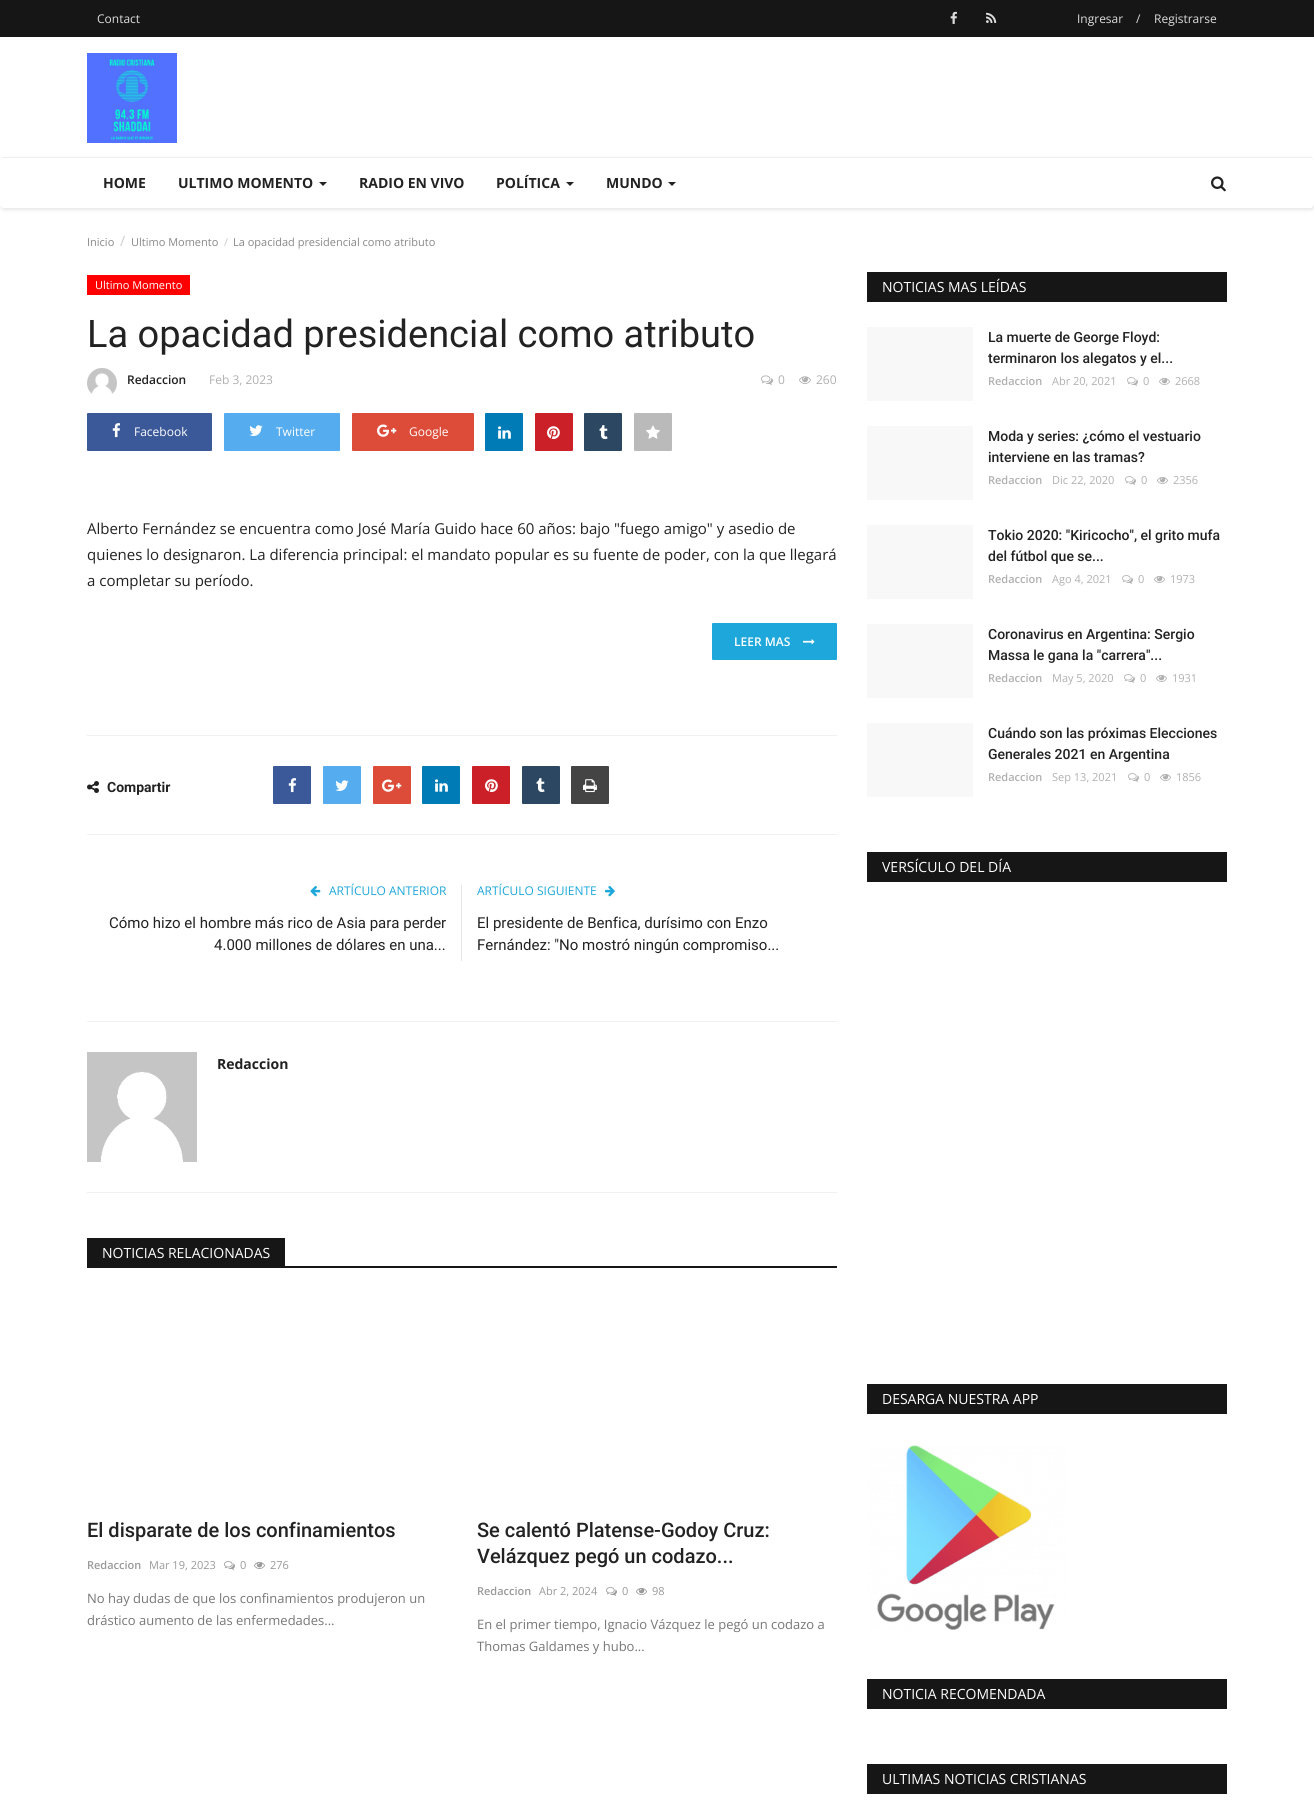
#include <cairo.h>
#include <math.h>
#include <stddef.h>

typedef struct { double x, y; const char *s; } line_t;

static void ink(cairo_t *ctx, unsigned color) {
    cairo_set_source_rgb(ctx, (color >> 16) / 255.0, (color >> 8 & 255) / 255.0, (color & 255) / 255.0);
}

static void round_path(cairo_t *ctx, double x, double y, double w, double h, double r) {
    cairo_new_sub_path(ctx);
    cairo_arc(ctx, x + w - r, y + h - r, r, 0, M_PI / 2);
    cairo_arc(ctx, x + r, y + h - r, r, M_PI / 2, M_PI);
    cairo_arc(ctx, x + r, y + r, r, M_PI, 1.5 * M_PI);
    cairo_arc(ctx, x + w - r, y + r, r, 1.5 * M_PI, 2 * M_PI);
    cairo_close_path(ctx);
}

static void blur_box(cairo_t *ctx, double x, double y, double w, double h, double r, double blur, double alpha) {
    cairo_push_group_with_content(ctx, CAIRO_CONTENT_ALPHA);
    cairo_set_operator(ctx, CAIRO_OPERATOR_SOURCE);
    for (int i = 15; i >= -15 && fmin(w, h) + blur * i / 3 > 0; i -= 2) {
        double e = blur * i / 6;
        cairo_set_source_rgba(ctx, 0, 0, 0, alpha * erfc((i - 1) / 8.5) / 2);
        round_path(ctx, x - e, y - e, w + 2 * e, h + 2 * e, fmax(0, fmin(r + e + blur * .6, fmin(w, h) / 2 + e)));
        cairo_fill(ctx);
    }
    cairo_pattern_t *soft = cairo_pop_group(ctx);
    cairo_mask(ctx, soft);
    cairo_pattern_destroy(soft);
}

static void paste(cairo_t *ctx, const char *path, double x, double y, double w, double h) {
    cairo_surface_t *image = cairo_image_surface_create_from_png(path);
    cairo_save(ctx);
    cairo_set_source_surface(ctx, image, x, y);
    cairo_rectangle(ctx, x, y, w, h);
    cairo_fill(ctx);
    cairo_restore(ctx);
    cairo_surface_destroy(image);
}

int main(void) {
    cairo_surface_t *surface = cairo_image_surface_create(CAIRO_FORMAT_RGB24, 1314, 1806);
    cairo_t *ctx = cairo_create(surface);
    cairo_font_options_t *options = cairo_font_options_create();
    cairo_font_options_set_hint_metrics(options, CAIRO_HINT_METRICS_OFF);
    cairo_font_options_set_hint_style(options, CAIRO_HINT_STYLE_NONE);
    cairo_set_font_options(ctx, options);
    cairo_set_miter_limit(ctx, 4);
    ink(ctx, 0xFFFFFF);
    cairo_paint(ctx);
    ink(ctx, 0x161616);
    cairo_rectangle(ctx, 0, 0, 1314, 37);
    cairo_fill(ctx);
    cairo_select_font_face(ctx, "Open Sans", CAIRO_FONT_SLANT_NORMAL, CAIRO_FONT_WEIGHT_NORMAL);
    cairo_set_font_size(ctx, 12);
    ink(ctx, 0xDDDDDD);
    cairo_move_to(ctx, 97, 23);
    cairo_show_text(ctx, "Contact");
    paste(ctx, "media/1.png", 950, 11, 7, 13);
    paste(ctx, "media/2.png", 986, 12, 11, 11);
    {
        static const line_t items[] = {
            {1077, 23, "Ingresar"},
            {1136, 23, "/"},
            {1154, 23, "Registrarse"},
        };
        for (size_t i = 0; i < sizeof items / sizeof *items; i++) {
            cairo_move_to(ctx, items[i].x, items[i].y);
            cairo_show_text(ctx, items[i].s);
        }
    }
    paste(ctx, "media/3.png", 87, 53, 90, 90);
    ink(ctx, 0x000000);
    blur_box(ctx, 1, 159, 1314, 51, 4, 2, 0.1);
    ink(ctx, 0xFFFFFF);
    round_path(ctx, 0, 157, 1314, 51, 4);
    cairo_fill(ctx);
    ink(ctx, 0xEEEEEE);
    cairo_rectangle(ctx, 2, 157, 1310, 1);
    cairo_fill(ctx);
    cairo_select_font_face(ctx, "Open Sans", CAIRO_FONT_SLANT_NORMAL, CAIRO_FONT_WEIGHT_BOLD);
    cairo_set_font_size(ctx, 14);
    ink(ctx, 0x222222);
    cairo_move_to(ctx, 103, 188);
    cairo_show_text(ctx, "HOME");
    cairo_move_to(ctx, 178, 188);
    cairo_show_text(ctx, "ULTIMO MOMENTO");
    cairo_new_path(ctx);
    cairo_move_to(ctx, 319, 182);
    cairo_line_to(ctx, 327, 182);
    cairo_line_to(ctx, 323, 186);
    cairo_close_path(ctx);
    cairo_fill(ctx);
    cairo_move_to(ctx, 359, 188);
    cairo_show_text(ctx, "RADIO EN VIVO");
    cairo_move_to(ctx, 496, 188);
    cairo_show_text(ctx, "POLÍTICA");
    cairo_new_path(ctx);
    cairo_move_to(ctx, 566, 182);
    cairo_line_to(ctx, 574, 182);
    cairo_line_to(ctx, 570, 186);
    cairo_close_path(ctx);
    cairo_fill(ctx);
    cairo_move_to(ctx, 606, 188);
    cairo_show_text(ctx, "MUNDO");
    cairo_new_path(ctx);
    cairo_move_to(ctx, 668, 182);
    cairo_line_to(ctx, 676, 182);
    cairo_line_to(ctx, 672, 186);
    cairo_close_path(ctx);
    cairo_fill(ctx);
    paste(ctx, "media/4.png", 1211, 176, 15, 16);
    cairo_select_font_face(ctx, "Open Sans", CAIRO_FONT_SLANT_NORMAL, CAIRO_FONT_WEIGHT_NORMAL);
    cairo_set_font_size(ctx, 11);
    ink(ctx, 0x888888);
    cairo_move_to(ctx, 87, 246);
    cairo_show_text(ctx, "Inicio");
    cairo_set_font_size(ctx, 14);
    ink(ctx, 0xCCCCCC);
    cairo_move_to(ctx, 120, 246);
    cairo_show_text(ctx, "/");
    cairo_set_font_size(ctx, 11);
    ink(ctx, 0x888888);
    cairo_move_to(ctx, 131, 246);
    cairo_show_text(ctx, "Ultimo Momento");
    ink(ctx, 0xCCCCCC);
    cairo_move_to(ctx, 224, 246);
    cairo_show_text(ctx, "/");
    ink(ctx, 0x888888);
    cairo_move_to(ctx, 233, 246);
    cairo_show_text(ctx, "La opacidad presidencial como atributo");
    ink(ctx, 0xFF0000);
    cairo_rectangle(ctx, 87, 275, 103, 20);
    cairo_fill(ctx);
    ink(ctx, 0xFFFFFF);
    cairo_move_to(ctx, 95, 289);
    cairo_show_text(ctx, "Ultimo Momento");
    cairo_select_font_face(ctx, "Roboto", CAIRO_FONT_SLANT_NORMAL, CAIRO_FONT_WEIGHT_NORMAL);
    cairo_set_font_size(ctx, 38);
    ink(ctx, 0x222222);
    cairo_move_to(ctx, 87, 347);
    cairo_show_text(ctx, "La opacidad presidencial como atributo");
    paste(ctx, "media/5.png", 87, 368, 30, 26);
    cairo_select_font_face(ctx, "Open Sans SemiBold", CAIRO_FONT_SLANT_NORMAL, CAIRO_FONT_WEIGHT_NORMAL);
    cairo_set_font_size(ctx, 12);
    cairo_move_to(ctx, 127, 384);
    cairo_show_text(ctx, "Redaccion");
    cairo_select_font_face(ctx, "Open Sans", CAIRO_FONT_SLANT_NORMAL, CAIRO_FONT_WEIGHT_NORMAL);
    ink(ctx, 0xB0B0B0);
    cairo_move_to(ctx, 209, 384);
    cairo_show_text(ctx, "Feb 3, 2023");
    paste(ctx, "media/6.png", 761, 375, 12, 10);
    cairo_move_to(ctx, 778, 384);
    cairo_show_text(ctx, "0");
    paste(ctx, "media/7.png", 799, 376, 12, 8);
    cairo_move_to(ctx, 816, 384);
    cairo_show_text(ctx, "260");
    ink(ctx, 0x3B5998);
    round_path(ctx, 87, 413, 125, 38, 1);
    cairo_fill(ctx);
    paste(ctx, "media/8.png", 112, 423, 9, 15);
    ink(ctx, 0xFFFFFF);
    cairo_move_to(ctx, 134, 436);
    cairo_show_text(ctx, "Facebook");
    ink(ctx, 0x55ACEE);
    round_path(ctx, 224, 413, 116, 38, 1);
    cairo_fill(ctx);
    paste(ctx, "media/9.png", 249, 425, 14, 11);
    ink(ctx, 0xFFFFFF);
    cairo_move_to(ctx, 276, 436);
    cairo_show_text(ctx, "Twitter");
    ink(ctx, 0xDD4B39);
    round_path(ctx, 352, 413, 122, 38, 1);
    cairo_fill(ctx);
    paste(ctx, "media/10.png", 377, 424, 20, 13);
    ink(ctx, 0xFFFFFF);
    cairo_move_to(ctx, 409, 436);
    cairo_show_text(ctx, "Google");
    ink(ctx, 0x007BB5);
    round_path(ctx, 485, 413, 38, 38, 1);
    cairo_fill(ctx);
    paste(ctx, "media/11.png", 498, 426, 13, 13);
    ink(ctx, 0xCB2027);
    round_path(ctx, 535, 413, 38, 38, 1);
    cairo_fill(ctx);
    paste(ctx, "media/12.png", 547, 426, 13, 14);
    ink(ctx, 0x2C4762);
    round_path(ctx, 584, 413, 38, 38, 1);
    cairo_fill(ctx);
    paste(ctx, "media/13.png", 599, 425, 9, 15);
    ink(ctx, 0xBABABA);
    round_path(ctx, 634, 413, 38, 38, 1);
    cairo_fill(ctx);
    paste(ctx, "media/14.png", 646, 425, 14, 14);
    cairo_set_font_size(ctx, 15);
    ink(ctx, 0x222222);
    {
        static const line_t items[] = {
            {87, 534, "Alberto Fernández se encuentra como José María Guido hace 60 años: bajo \"fuego amigo\" y asedio de"},
            {87, 560, "quienes lo designaron. La diferencia principal: el mandato popular es su fuente de poder, con la que llegará"},
            {87, 586, "a completar su período."},
        };
        for (size_t i = 0; i < sizeof items / sizeof *items; i++) {
            cairo_move_to(ctx, items[i].x, items[i].y);
            cairo_show_text(ctx, items[i].s);
        }
    }
    ink(ctx, 0x1DA7DA);
    round_path(ctx, 712, 623, 125, 37, 1);
    cairo_fill(ctx);
    cairo_select_font_face(ctx, "Open Sans SemiBold", CAIRO_FONT_SLANT_NORMAL, CAIRO_FONT_WEIGHT_NORMAL);
    cairo_set_font_size(ctx, 12);
    ink(ctx, 0xFFFFFF);
    cairo_move_to(ctx, 734, 646);
    cairo_show_text(ctx, "LEER MAS");
    paste(ctx, "media/15.png", 803, 639, 12, 6);
    ink(ctx, 0xF0F0F0);
    cairo_rectangle(ctx, 87, 735, 750, 1);
    cairo_fill(ctx);
    cairo_rectangle(ctx, 87, 834, 750, 1);
    cairo_fill(ctx);
    paste(ctx, "media/16.png", 87, 781, 12, 12);
    cairo_select_font_face(ctx, "Roboto", CAIRO_FONT_SLANT_NORMAL, CAIRO_FONT_WEIGHT_BOLD);
    cairo_set_font_size(ctx, 14);
    ink(ctx, 0x222222);
    cairo_move_to(ctx, 107, 792);
    cairo_show_text(ctx, "Compartir");
    ink(ctx, 0x3B5998);
    round_path(ctx, 273, 766, 38, 38, 1);
    cairo_fill(ctx);
    paste(ctx, "media/8.png", 288, 778, 9, 15);
    ink(ctx, 0x55ACEE);
    round_path(ctx, 323, 766, 38, 38, 1);
    cairo_fill(ctx);
    paste(ctx, "media/9.png", 335, 780, 14, 11);
    ink(ctx, 0xDD4B39);
    round_path(ctx, 373, 766, 38, 38, 1);
    cairo_fill(ctx);
    paste(ctx, "media/10.png", 382, 779, 20, 13);
    ink(ctx, 0x007BB5);
    round_path(ctx, 422, 766, 38, 38, 1);
    cairo_fill(ctx);
    paste(ctx, "media/11.png", 435, 779, 13, 13);
    ink(ctx, 0xCB2027);
    round_path(ctx, 472, 766, 38, 38, 1);
    cairo_fill(ctx);
    paste(ctx, "media/12.png", 485, 779, 13, 14);
    ink(ctx, 0x2C4762);
    round_path(ctx, 522, 766, 38, 38, 1);
    cairo_fill(ctx);
    paste(ctx, "media/13.png", 536, 778, 9, 15);
    ink(ctx, 0x444444);
    round_path(ctx, 571, 766, 38, 38, 1);
    cairo_fill(ctx);
    paste(ctx, "media/17.png", 583, 779, 14, 14);
    ink(ctx, 0xE6E6E6);
    cairo_rectangle(ctx, 461, 885, 1, 76);
    cairo_fill(ctx);
    paste(ctx, "media/18.png", 310, 886, 11, 11);
    cairo_select_font_face(ctx, "Open Sans", CAIRO_FONT_SLANT_NORMAL, CAIRO_FONT_WEIGHT_NORMAL);
    cairo_set_font_size(ctx, 12);
    ink(ctx, 0x1DA7DA);
    cairo_move_to(ctx, 329, 895);
    cairo_show_text(ctx, "ARTÍCULO ANTERIOR");
    cairo_select_font_face(ctx, "Roboto", CAIRO_FONT_SLANT_NORMAL, CAIRO_FONT_WEIGHT_NORMAL);
    cairo_set_font_size(ctx, 15);
    ink(ctx, 0x222222);
    cairo_move_to(ctx, 109, 928);
    cairo_show_text(ctx, "Cómo hizo el hombre más rico de Asia para perder");
    cairo_move_to(ctx, 214, 950);
    cairo_show_text(ctx, "4.000 millones de dólares en una...");
    cairo_select_font_face(ctx, "Open Sans", CAIRO_FONT_SLANT_NORMAL, CAIRO_FONT_WEIGHT_NORMAL);
    cairo_set_font_size(ctx, 12);
    ink(ctx, 0x1DA7DA);
    cairo_move_to(ctx, 477, 895);
    cairo_show_text(ctx, "ARTÍCULO SIGUIENTE");
    paste(ctx, "media/19.png", 605, 886, 10, 11);
    cairo_select_font_face(ctx, "Roboto", CAIRO_FONT_SLANT_NORMAL, CAIRO_FONT_WEIGHT_NORMAL);
    cairo_set_font_size(ctx, 15);
    ink(ctx, 0x222222);
    cairo_move_to(ctx, 477, 928);
    cairo_show_text(ctx, "El presidente de Benfica, durísimo con Enzo");
    cairo_move_to(ctx, 477, 950);
    cairo_show_text(ctx, "Fernández: \"No mostró ningún compromiso...");
    ink(ctx, 0xF0F0F0);
    cairo_rectangle(ctx, 87, 1021, 750, 1);
    cairo_fill(ctx);
    cairo_rectangle(ctx, 87, 1192, 750, 1);
    cairo_fill(ctx);
    paste(ctx, "media/20.png", 87, 1052, 110, 110);
    cairo_select_font_face(ctx, "Open Sans", CAIRO_FONT_SLANT_NORMAL, CAIRO_FONT_WEIGHT_BOLD);
    cairo_set_font_size(ctx, 14);
    ink(ctx, 0x222222);
    cairo_move_to(ctx, 217, 1069);
    cairo_show_text(ctx, "Redaccion");
    ink(ctx, 0x161616);
    cairo_rectangle(ctx, 285, 1266, 552, 2);
    cairo_fill(ctx);
    cairo_rectangle(ctx, 87, 1238, 198, 30);
    cairo_fill(ctx);
    cairo_select_font_face(ctx, "Open Sans", CAIRO_FONT_SLANT_NORMAL, CAIRO_FONT_WEIGHT_NORMAL);
    ink(ctx, 0xFFFFFF);
    cairo_move_to(ctx, 102, 1258);
    cairo_show_text(ctx, "NOTICIAS RELACIONADAS");
    cairo_select_font_face(ctx, "Roboto Medium", CAIRO_FONT_SLANT_NORMAL, CAIRO_FONT_WEIGHT_NORMAL);
    cairo_set_font_size(ctx, 20);
    ink(ctx, 0x222222);
    cairo_move_to(ctx, 87, 1537);
    cairo_show_text(ctx, "El disparate de los confinamientos");
    cairo_select_font_face(ctx, "Open Sans SemiBold", CAIRO_FONT_SLANT_NORMAL, CAIRO_FONT_WEIGHT_NORMAL);
    cairo_set_font_size(ctx, 11);
    ink(ctx, 0x999999);
    cairo_move_to(ctx, 87, 1569);
    cairo_show_text(ctx, "Redaccion");
    cairo_select_font_face(ctx, "Open Sans", CAIRO_FONT_SLANT_NORMAL, CAIRO_FONT_WEIGHT_NORMAL);
    cairo_move_to(ctx, 149, 1569);
    cairo_show_text(ctx, "Mar 19, 2023");
    paste(ctx, "media/21.png", 224, 1561, 11, 9);
    cairo_move_to(ctx, 240, 1569);
    cairo_show_text(ctx, "0");
    paste(ctx, "media/22.png", 254, 1562, 11, 7);
    cairo_move_to(ctx, 270, 1569);
    cairo_show_text(ctx, "276");
    cairo_set_font_size(ctx, 13);
    ink(ctx, 0x777777);
    cairo_move_to(ctx, 87, 1603);
    cairo_show_text(ctx, "No hay dudas de que los confinamientos produjeron un");
    cairo_move_to(ctx, 87, 1625);
    cairo_show_text(ctx, "drástico aumento de las enfermedades...");
    cairo_select_font_face(ctx, "Roboto Medium", CAIRO_FONT_SLANT_NORMAL, CAIRO_FONT_WEIGHT_NORMAL);
    cairo_set_font_size(ctx, 20);
    ink(ctx, 0x222222);
    cairo_move_to(ctx, 477, 1537);
    cairo_show_text(ctx, "Se calentó Platense-Godoy Cruz:");
    cairo_move_to(ctx, 477, 1563);
    cairo_show_text(ctx, "Velázquez pegó un codazo...");
    cairo_select_font_face(ctx, "Open Sans SemiBold", CAIRO_FONT_SLANT_NORMAL, CAIRO_FONT_WEIGHT_NORMAL);
    cairo_set_font_size(ctx, 11);
    ink(ctx, 0x999999);
    cairo_move_to(ctx, 477, 1595);
    cairo_show_text(ctx, "Redaccion");
    cairo_select_font_face(ctx, "Open Sans", CAIRO_FONT_SLANT_NORMAL, CAIRO_FONT_WEIGHT_NORMAL);
    cairo_move_to(ctx, 539, 1595);
    cairo_show_text(ctx, "Abr 2, 2024");
    paste(ctx, "media/21.png", 606, 1587, 11, 9);
    cairo_move_to(ctx, 622, 1595);
    cairo_show_text(ctx, "0");
    paste(ctx, "media/22.png", 636, 1588, 11, 7);
    cairo_move_to(ctx, 652, 1595);
    cairo_show_text(ctx, "98");
    cairo_set_font_size(ctx, 13);
    ink(ctx, 0x777777);
    cairo_move_to(ctx, 477, 1629);
    cairo_show_text(ctx, "En el primer tiempo, Ignacio Vázquez le pegó un codazo a");
    cairo_move_to(ctx, 477, 1651);
    cairo_show_text(ctx, "Thomas Galdames y hubo...");
    ink(ctx, 0x161616);
    cairo_rectangle(ctx, 867, 272, 360, 30);
    cairo_fill(ctx);
    cairo_set_font_size(ctx, 14);
    ink(ctx, 0xFFFFFF);
    cairo_move_to(ctx, 882, 292);
    cairo_show_text(ctx, "NOTICIAS MAS LEÍDAS");
    ink(ctx, 0xF8F8F8);
    cairo_rectangle(ctx, 867, 327, 106, 74);
    cairo_fill(ctx);
    cairo_select_font_face(ctx, "Roboto Medium", CAIRO_FONT_SLANT_NORMAL, CAIRO_FONT_WEIGHT_NORMAL);
    ink(ctx, 0x222222);
    cairo_move_to(ctx, 988, 342);
    cairo_show_text(ctx, "La muerte de George Floyd:");
    cairo_move_to(ctx, 988, 363);
    cairo_show_text(ctx, "terminaron los alegatos y el...");
    cairo_select_font_face(ctx, "Open Sans SemiBold", CAIRO_FONT_SLANT_NORMAL, CAIRO_FONT_WEIGHT_NORMAL);
    cairo_set_font_size(ctx, 11);
    ink(ctx, 0xB0B0B0);
    cairo_move_to(ctx, 988, 385);
    cairo_show_text(ctx, "Redaccion");
    cairo_select_font_face(ctx, "Open Sans", CAIRO_FONT_SLANT_NORMAL, CAIRO_FONT_WEIGHT_NORMAL);
    cairo_move_to(ctx, 1052, 385);
    cairo_show_text(ctx, "Abr 20, 2021");
    paste(ctx, "media/23.png", 1127, 377, 11, 9);
    cairo_move_to(ctx, 1143, 385);
    cairo_show_text(ctx, "0");
    paste(ctx, "media/24.png", 1159, 378, 11, 7);
    cairo_move_to(ctx, 1175, 385);
    cairo_show_text(ctx, "2668");
    ink(ctx, 0xF8F8F8);
    cairo_rectangle(ctx, 867, 426, 106, 74);
    cairo_fill(ctx);
    cairo_select_font_face(ctx, "Roboto Medium", CAIRO_FONT_SLANT_NORMAL, CAIRO_FONT_WEIGHT_NORMAL);
    cairo_set_font_size(ctx, 14);
    ink(ctx, 0x222222);
    cairo_move_to(ctx, 988, 441);
    cairo_show_text(ctx, "Moda y series: ¿cómo el vestuario");
    cairo_move_to(ctx, 988, 462);
    cairo_show_text(ctx, "interviene en las tramas?");
    cairo_select_font_face(ctx, "Open Sans SemiBold", CAIRO_FONT_SLANT_NORMAL, CAIRO_FONT_WEIGHT_NORMAL);
    cairo_set_font_size(ctx, 11);
    ink(ctx, 0xB0B0B0);
    cairo_move_to(ctx, 988, 484);
    cairo_show_text(ctx, "Redaccion");
    cairo_select_font_face(ctx, "Open Sans", CAIRO_FONT_SLANT_NORMAL, CAIRO_FONT_WEIGHT_NORMAL);
    cairo_move_to(ctx, 1052, 484);
    cairo_show_text(ctx, "Dic 22, 2020");
    paste(ctx, "media/23.png", 1125, 476, 11, 9);
    cairo_move_to(ctx, 1141, 484);
    cairo_show_text(ctx, "0");
    paste(ctx, "media/24.png", 1157, 477, 11, 7);
    cairo_move_to(ctx, 1173, 484);
    cairo_show_text(ctx, "2356");
    ink(ctx, 0xF8F8F8);
    cairo_rectangle(ctx, 867, 525, 106, 74);
    cairo_fill(ctx);
    cairo_select_font_face(ctx, "Roboto Medium", CAIRO_FONT_SLANT_NORMAL, CAIRO_FONT_WEIGHT_NORMAL);
    cairo_set_font_size(ctx, 14);
    ink(ctx, 0x222222);
    cairo_move_to(ctx, 988, 540);
    cairo_show_text(ctx, "Tokio 2020: \"Kiricocho\", el grito mufa");
    cairo_move_to(ctx, 988, 561);
    cairo_show_text(ctx, "del fútbol que se...");
    cairo_select_font_face(ctx, "Open Sans SemiBold", CAIRO_FONT_SLANT_NORMAL, CAIRO_FONT_WEIGHT_NORMAL);
    cairo_set_font_size(ctx, 11);
    ink(ctx, 0xB0B0B0);
    cairo_move_to(ctx, 988, 583);
    cairo_show_text(ctx, "Redaccion");
    cairo_select_font_face(ctx, "Open Sans", CAIRO_FONT_SLANT_NORMAL, CAIRO_FONT_WEIGHT_NORMAL);
    cairo_move_to(ctx, 1052, 583);
    cairo_show_text(ctx, "Ago 4, 2021");
    paste(ctx, "media/23.png", 1122, 575, 11, 9);
    cairo_move_to(ctx, 1138, 583);
    cairo_show_text(ctx, "0");
    paste(ctx, "media/24.png", 1154, 576, 11, 7);
    cairo_move_to(ctx, 1170, 583);
    cairo_show_text(ctx, "1973");
    ink(ctx, 0xF8F8F8);
    cairo_rectangle(ctx, 867, 624, 106, 74);
    cairo_fill(ctx);
    cairo_select_font_face(ctx, "Roboto Medium", CAIRO_FONT_SLANT_NORMAL, CAIRO_FONT_WEIGHT_NORMAL);
    cairo_set_font_size(ctx, 14);
    ink(ctx, 0x222222);
    cairo_move_to(ctx, 988, 639);
    cairo_show_text(ctx, "Coronavirus en Argentina: Sergio");
    cairo_move_to(ctx, 988, 660);
    cairo_show_text(ctx, "Massa le gana la \"carrera\"...");
    cairo_select_font_face(ctx, "Open Sans SemiBold", CAIRO_FONT_SLANT_NORMAL, CAIRO_FONT_WEIGHT_NORMAL);
    cairo_set_font_size(ctx, 11);
    ink(ctx, 0xB0B0B0);
    cairo_move_to(ctx, 988, 682);
    cairo_show_text(ctx, "Redaccion");
    cairo_select_font_face(ctx, "Open Sans", CAIRO_FONT_SLANT_NORMAL, CAIRO_FONT_WEIGHT_NORMAL);
    cairo_move_to(ctx, 1052, 682);
    cairo_show_text(ctx, "May 5, 2020");
    paste(ctx, "media/23.png", 1124, 674, 11, 9);
    cairo_move_to(ctx, 1140, 682);
    cairo_show_text(ctx, "0");
    paste(ctx, "media/24.png", 1156, 675, 11, 7);
    cairo_move_to(ctx, 1172, 682);
    cairo_show_text(ctx, "1931");
    ink(ctx, 0xF8F8F8);
    cairo_rectangle(ctx, 867, 723, 106, 74);
    cairo_fill(ctx);
    cairo_select_font_face(ctx, "Roboto Medium", CAIRO_FONT_SLANT_NORMAL, CAIRO_FONT_WEIGHT_NORMAL);
    cairo_set_font_size(ctx, 14);
    ink(ctx, 0x222222);
    cairo_move_to(ctx, 988, 738);
    cairo_show_text(ctx, "Cuándo son las próximas Elecciones");
    cairo_move_to(ctx, 988, 759);
    cairo_show_text(ctx, "Generales 2021 en Argentina");
    cairo_select_font_face(ctx, "Open Sans SemiBold", CAIRO_FONT_SLANT_NORMAL, CAIRO_FONT_WEIGHT_NORMAL);
    cairo_set_font_size(ctx, 11);
    ink(ctx, 0xB0B0B0);
    cairo_move_to(ctx, 988, 781);
    cairo_show_text(ctx, "Redaccion");
    cairo_select_font_face(ctx, "Open Sans", CAIRO_FONT_SLANT_NORMAL, CAIRO_FONT_WEIGHT_NORMAL);
    cairo_move_to(ctx, 1052, 781);
    cairo_show_text(ctx, "Sep 13, 2021");
    paste(ctx, "media/23.png", 1128, 773, 11, 9);
    cairo_move_to(ctx, 1144, 781);
    cairo_show_text(ctx, "0");
    paste(ctx, "media/24.png", 1160, 774, 11, 7);
    cairo_move_to(ctx, 1176, 781);
    cairo_show_text(ctx, "1856");
    ink(ctx, 0x161616);
    cairo_rectangle(ctx, 867, 852, 360, 30);
    cairo_fill(ctx);
    cairo_set_font_size(ctx, 14);
    ink(ctx, 0xFFFFFF);
    cairo_move_to(ctx, 882, 872);
    cairo_show_text(ctx, "VERSÍCULO DEL DÍA");
    ink(ctx, 0x161616);
    cairo_rectangle(ctx, 867, 1384, 360, 30);
    cairo_fill(ctx);
    ink(ctx, 0xFFFFFF);
    cairo_move_to(ctx, 882, 1404);
    cairo_show_text(ctx, "DESARGA NUESTRA APP");
    paste(ctx, "media/25.png", 867, 1445, 200, 185);
    ink(ctx, 0x161616);
    cairo_rectangle(ctx, 867, 1679, 360, 30);
    cairo_fill(ctx);
    ink(ctx, 0xFFFFFF);
    cairo_move_to(ctx, 882, 1699);
    cairo_show_text(ctx, "NOTICIA RECOMENDADA");
    ink(ctx, 0x161616);
    cairo_rectangle(ctx, 867, 1764, 360, 30);
    cairo_fill(ctx);
    ink(ctx, 0xFFFFFF);
    cairo_move_to(ctx, 882, 1784);
    cairo_show_text(ctx, "ULTIMAS NOTICIAS CRISTIANAS");
    cairo_surface_write_to_png(surface, "image.png");
    cairo_font_options_destroy(options);
    cairo_destroy(ctx);
    cairo_surface_destroy(surface);
    return 0;
}
